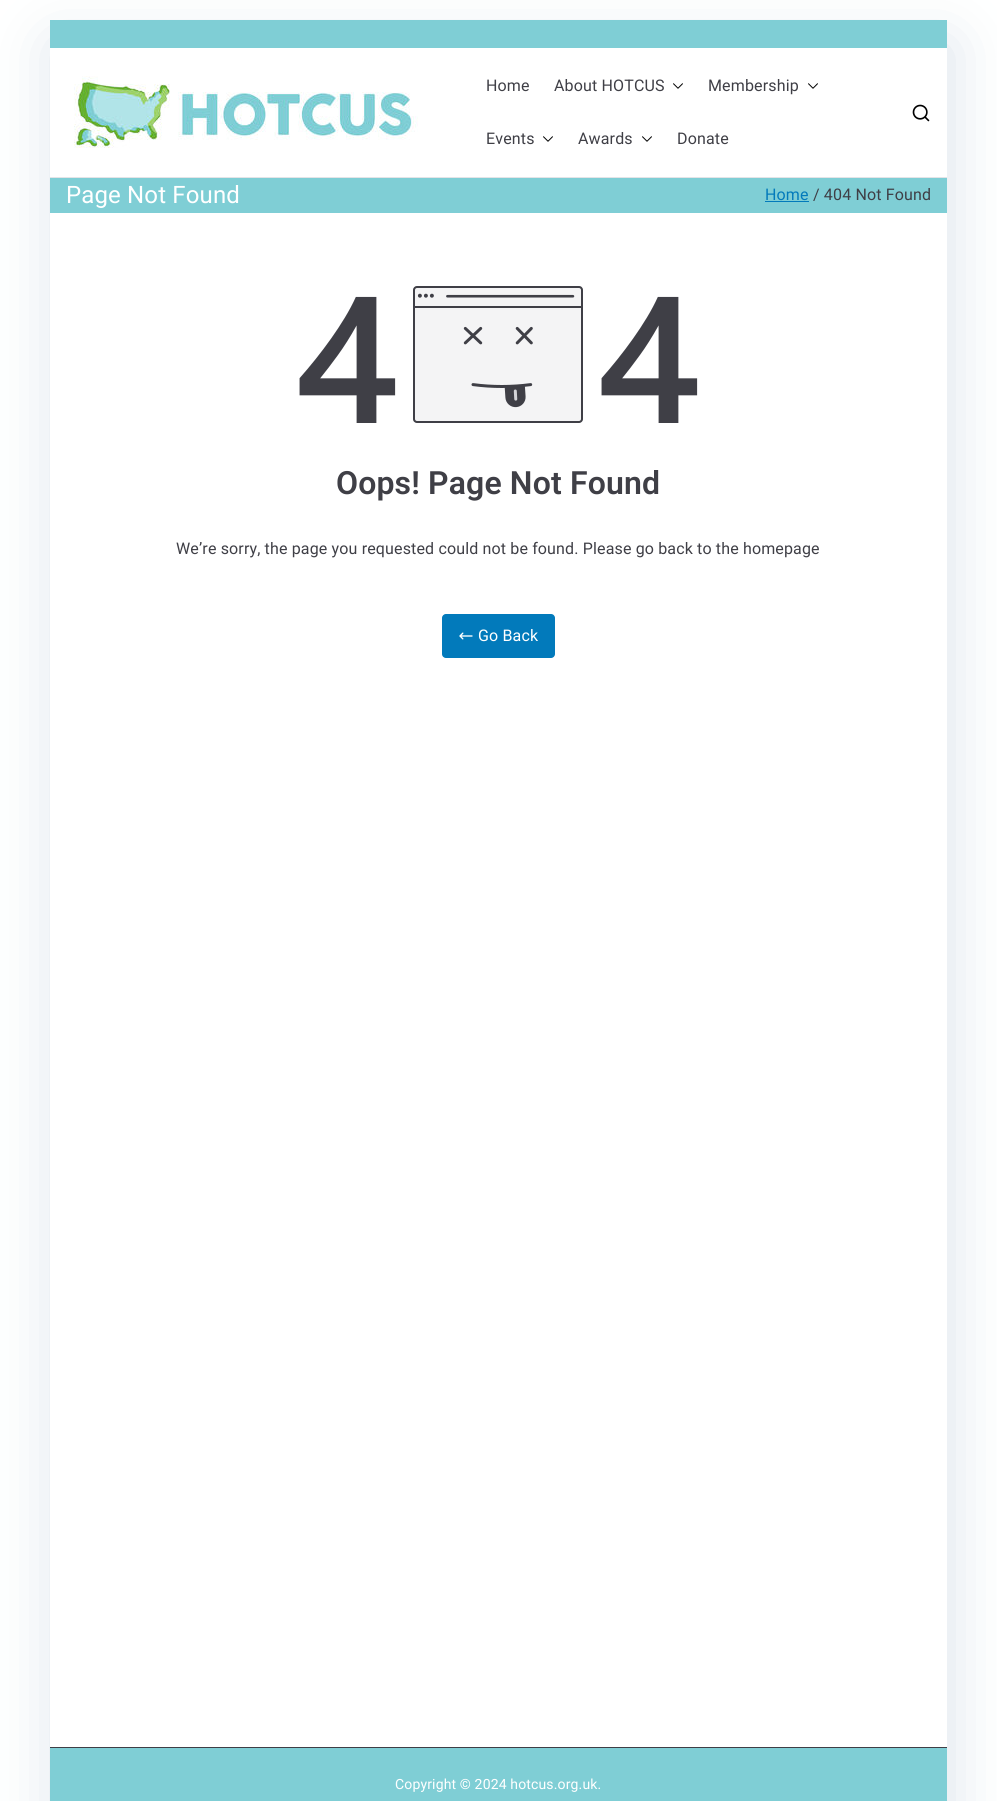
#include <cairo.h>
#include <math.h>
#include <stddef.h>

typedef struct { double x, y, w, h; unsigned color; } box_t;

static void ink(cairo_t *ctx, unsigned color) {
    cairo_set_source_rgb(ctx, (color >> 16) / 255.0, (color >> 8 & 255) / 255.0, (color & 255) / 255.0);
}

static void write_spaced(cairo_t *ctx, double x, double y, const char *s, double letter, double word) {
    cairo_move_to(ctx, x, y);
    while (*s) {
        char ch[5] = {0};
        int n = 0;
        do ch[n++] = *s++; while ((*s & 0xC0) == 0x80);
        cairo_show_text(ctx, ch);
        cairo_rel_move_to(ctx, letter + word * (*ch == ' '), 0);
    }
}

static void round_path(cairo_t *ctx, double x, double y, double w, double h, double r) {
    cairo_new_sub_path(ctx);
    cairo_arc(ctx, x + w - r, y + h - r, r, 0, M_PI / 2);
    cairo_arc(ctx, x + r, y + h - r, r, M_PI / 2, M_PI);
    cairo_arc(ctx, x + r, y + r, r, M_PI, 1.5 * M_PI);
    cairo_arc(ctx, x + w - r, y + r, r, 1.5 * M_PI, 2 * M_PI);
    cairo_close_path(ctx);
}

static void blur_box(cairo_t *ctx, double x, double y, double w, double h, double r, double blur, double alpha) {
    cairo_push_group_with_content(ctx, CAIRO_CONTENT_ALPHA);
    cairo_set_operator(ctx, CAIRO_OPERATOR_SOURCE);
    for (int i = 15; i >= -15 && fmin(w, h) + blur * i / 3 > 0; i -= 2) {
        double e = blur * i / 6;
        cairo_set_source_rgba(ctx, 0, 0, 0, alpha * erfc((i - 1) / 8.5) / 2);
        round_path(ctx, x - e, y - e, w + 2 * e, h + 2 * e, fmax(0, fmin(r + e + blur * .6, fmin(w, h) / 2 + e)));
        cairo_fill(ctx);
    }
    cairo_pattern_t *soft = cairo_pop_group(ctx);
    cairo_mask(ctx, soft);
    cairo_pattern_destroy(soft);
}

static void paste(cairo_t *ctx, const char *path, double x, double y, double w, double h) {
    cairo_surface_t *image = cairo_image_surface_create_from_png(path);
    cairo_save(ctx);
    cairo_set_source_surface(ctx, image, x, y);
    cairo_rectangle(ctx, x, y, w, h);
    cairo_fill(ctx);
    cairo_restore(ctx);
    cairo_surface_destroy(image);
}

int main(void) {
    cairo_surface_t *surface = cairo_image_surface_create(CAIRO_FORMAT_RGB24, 997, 1801);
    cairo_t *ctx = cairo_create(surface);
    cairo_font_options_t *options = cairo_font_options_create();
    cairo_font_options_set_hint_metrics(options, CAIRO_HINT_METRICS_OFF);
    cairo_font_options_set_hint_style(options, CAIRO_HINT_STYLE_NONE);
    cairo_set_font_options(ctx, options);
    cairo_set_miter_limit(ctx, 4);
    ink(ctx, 0xFFFFFF);
    cairo_paint(ctx);
    ink(ctx, 0x6D8DAD);
    blur_box(ctx, 54, 44, 897, 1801, 0, 30, 0.25);
    {
        static const box_t items[] = {
            {50, 177, 897, 1, 0xE4E4E7},
            {50, 20, 897, 28, 0x7FCED5},
            {50, 48, 897, 129, 0xFFFFFF},
        };
        for (size_t i = 0; i < sizeof items / sizeof *items; i++) {
            ink(ctx, items[i].color);
            cairo_rectangle(ctx, items[i].x, items[i].y, items[i].w, items[i].h);
            cairo_fill(ctx);
        }
    }
    paste(ctx, "media/1.png", 74, 76, 344, 72);
    cairo_select_font_face(ctx, "Roboto", CAIRO_FONT_SLANT_NORMAL, CAIRO_FONT_WEIGHT_NORMAL);
    cairo_set_font_size(ctx, 16);
    ink(ctx, 0x3F3F46);
    write_spaced(ctx, 486, 91, "Home", 0.15, 0);
    write_spaced(ctx, 554, 91, "About HOTCUS", 0.15, 0);
    paste(ctx, "media/2.png", 673, 83, 10, 6);
    write_spaced(ctx, 708, 91, "Membership", 0.15, 0);
    paste(ctx, "media/2.png", 808, 83, 10, 6);
    write_spaced(ctx, 486, 144, "Events", 0.15, 0);
    paste(ctx, "media/2.png", 543, 136, 10, 6);
    write_spaced(ctx, 578, 144, "Awards", 0.15, 0);
    paste(ctx, "media/2.png", 642, 136, 10, 6);
    write_spaced(ctx, 677, 144, "Donate", 0.15, 0);
    paste(ctx, "media/3.png", 912, 104, 18, 18);
    ink(ctx, 0x7FCED5);
    cairo_rectangle(ctx, 50, 178, 897, 35);
    cairo_fill(ctx);
    cairo_set_font_size(ctx, 24);
    ink(ctx, 0xFFFFFF);
    write_spaced(ctx, 66, 203, "Page Not Found", 0.15, 0);
    cairo_set_font_size(ctx, 16);
    ink(ctx, 0x027ABB);
    write_spaced(ctx, 765, 200, "Home", 0.15, 0);
    cairo_rectangle(ctx, 765, 201, 44, 1);
    cairo_fill(ctx);
    ink(ctx, 0x3F3F46);
    write_spaced(ctx, 813, 200, "/ 404 Not Found", 0.15, 0);
    ink(ctx, 0xFFFFFF);
    cairo_rectangle(ctx, 50, 213, 897, 1534);
    cairo_fill(ctx);
    paste(ctx, "media/4.png", 299, 286, 399, 137);
    cairo_select_font_face(ctx, "Roboto SemiBold", CAIRO_FONT_SLANT_NORMAL, CAIRO_FONT_WEIGHT_NORMAL);
    cairo_set_font_size(ctx, 32);
    ink(ctx, 0x3F3F46);
    write_spaced(ctx, 336, 494, "Oops! Page Not Found", 0.15, 0);
    cairo_select_font_face(ctx, "Roboto", CAIRO_FONT_SLANT_NORMAL, CAIRO_FONT_WEIGHT_NORMAL);
    cairo_set_font_size(ctx, 16);
    write_spaced(ctx, 176, 554, "We’re sorry, the page you requested could not be found. Please go back to the homepage", 0.15, 0);
    ink(ctx, 0x027ABB);
    round_path(ctx, 442, 614, 113, 44, 4);
    cairo_fill(ctx);
    paste(ctx, "media/5.png", 459, 632, 14, 8);
    ink(ctx, 0xFFFFFF);
    write_spaced(ctx, 478, 641, "Go Back", 0.15, 0);
    ink(ctx, 0x7FCED5);
    cairo_rectangle(ctx, 50, 1748, 897, 53);
    cairo_fill(ctx);
    ink(ctx, 0x3F3F46);
    cairo_rectangle(ctx, 50, 1747, 897, 1);
    cairo_fill(ctx);
    cairo_set_font_size(ctx, 14);
    ink(ctx, 0xFFFFFF);
    write_spaced(ctx, 395, 1789, "Copyright © 2024 hotcus.org.uk.", 0.15, 0);
    cairo_surface_write_to_png(surface, "image.png");
    cairo_font_options_destroy(options);
    cairo_destroy(ctx);
    cairo_surface_destroy(surface);
    return 0;
}
